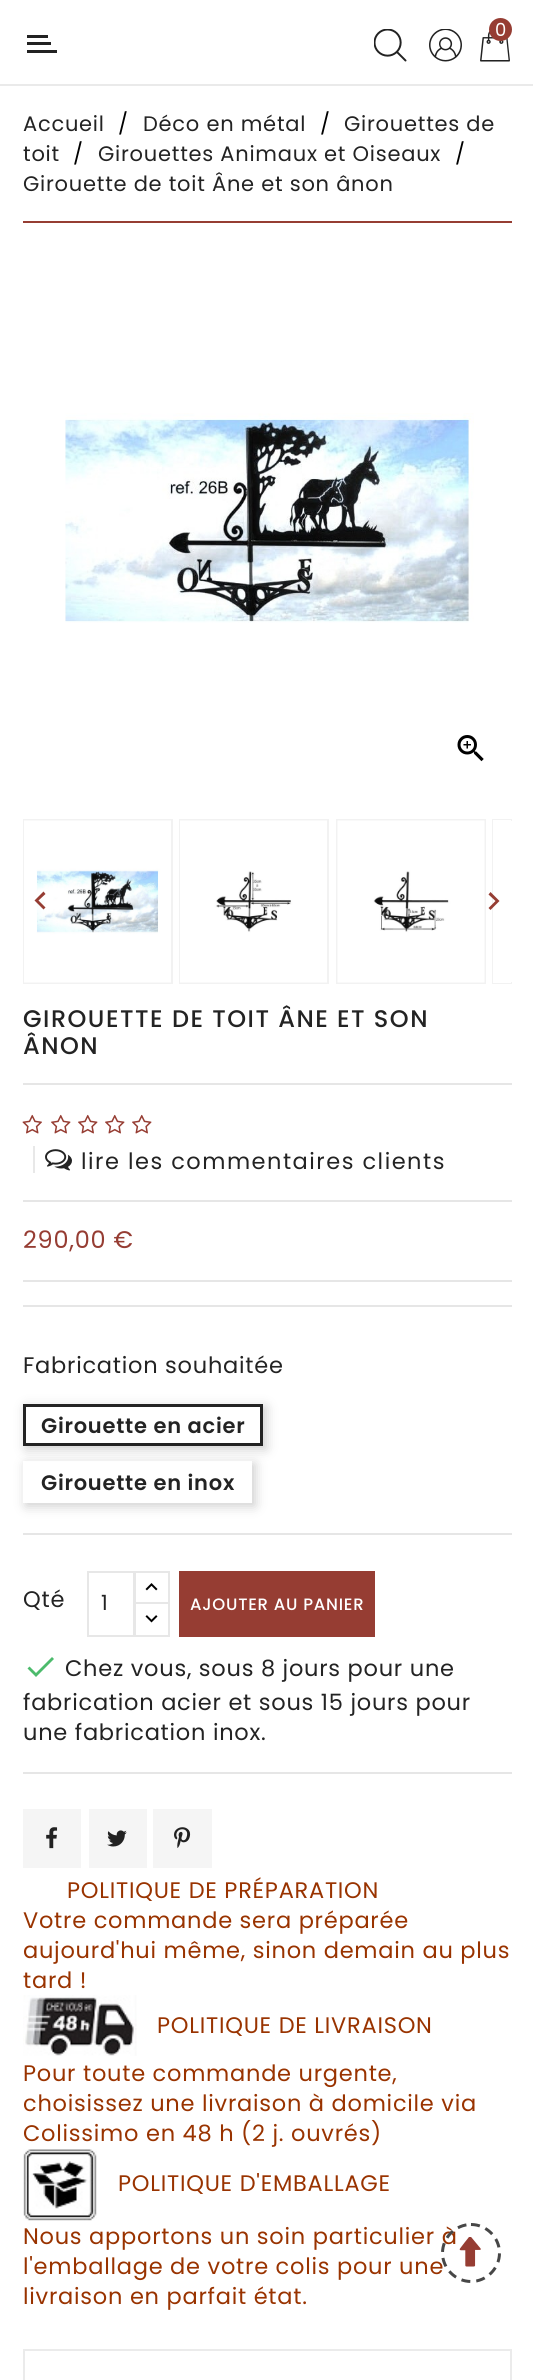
#include <cairo.h>
#include <math.h>
#include <stddef.h>

typedef struct { double x, y; const char *s; } line_t;
typedef struct { double x, y, w, h; unsigned color; } box_t;

static void ink(cairo_t *ctx, unsigned color) {
    cairo_set_source_rgb(ctx, (color >> 16) / 255.0, (color >> 8 & 255) / 255.0, (color & 255) / 255.0);
}

static void write_spaced(cairo_t *ctx, double x, double y, const char *s, double letter, double word) {
    cairo_move_to(ctx, x, y);
    while (*s) {
        char ch[5] = {0};
        int n = 0;
        do ch[n++] = *s++; while ((*s & 0xC0) == 0x80);
        cairo_show_text(ctx, ch);
        cairo_rel_move_to(ctx, letter + word * (*ch == ' '), 0);
    }
}

static void round_path(cairo_t *ctx, double x, double y, double w, double h, double r) {
    cairo_new_sub_path(ctx);
    cairo_arc(ctx, x + w - r, y + h - r, r, 0, M_PI / 2);
    cairo_arc(ctx, x + r, y + h - r, r, M_PI / 2, M_PI);
    cairo_arc(ctx, x + r, y + r, r, M_PI, 1.5 * M_PI);
    cairo_arc(ctx, x + w - r, y + r, r, 1.5 * M_PI, 2 * M_PI);
    cairo_close_path(ctx);
}

static void blur_box(cairo_t *ctx, double x, double y, double w, double h, double r, double blur, double alpha) {
    cairo_push_group_with_content(ctx, CAIRO_CONTENT_ALPHA);
    cairo_set_operator(ctx, CAIRO_OPERATOR_SOURCE);
    for (int i = 15; i >= -15 && fmin(w, h) + blur * i / 3 > 0; i -= 2) {
        double e = blur * i / 6;
        cairo_set_source_rgba(ctx, 0, 0, 0, alpha * erfc((i - 1) / 8.5) / 2);
        round_path(ctx, x - e, y - e, w + 2 * e, h + 2 * e, fmax(0, fmin(r + e + blur * .6, fmin(w, h) / 2 + e)));
        cairo_fill(ctx);
    }
    cairo_pattern_t *soft = cairo_pop_group(ctx);
    cairo_mask(ctx, soft);
    cairo_pattern_destroy(soft);
}

static void paste(cairo_t *ctx, const char *path, double x, double y, double w, double h) {
    cairo_surface_t *image = cairo_image_surface_create_from_png(path);
    cairo_save(ctx);
    cairo_set_source_surface(ctx, image, x, y);
    cairo_rectangle(ctx, x, y, w, h);
    cairo_fill(ctx);
    cairo_restore(ctx);
    cairo_surface_destroy(image);
}

int main(void) {
    cairo_surface_t *surface = cairo_image_surface_create(CAIRO_FORMAT_RGB24, 533, 2380);
    cairo_t *ctx = cairo_create(surface);
    cairo_font_options_t *options = cairo_font_options_create();
    cairo_font_options_set_hint_metrics(options, CAIRO_HINT_METRICS_OFF);
    cairo_font_options_set_hint_style(options, CAIRO_HINT_STYLE_NONE);
    cairo_set_font_options(ctx, options);
    cairo_set_miter_limit(ctx, 4);
    ink(ctx, 0xFFFFFF);
    cairo_paint(ctx);
    paste(ctx, "media/1.png", 374, 29, 33, 33);
    paste(ctx, "media/2.png", 429, 29, 33, 33);
    paste(ctx, "media/3.png", 480, 30, 30, 32);
    ink(ctx, 0x963D33);
    cairo_arc(ctx, 500.5, 29.5, 11.5, 0, 2 * M_PI);
    cairo_fill(ctx);
    cairo_select_font_face(ctx, "Poppins", CAIRO_FONT_SLANT_NORMAL, CAIRO_FONT_WEIGHT_NORMAL);
    cairo_set_font_size(ctx, 18);
    ink(ctx, 0xFFFFFF);
    cairo_move_to(ctx, 495, 36);
    cairo_show_text(ctx, "0");
    {
        static const box_t items[] = {
            {27, 35, 21, 3, 0x222222},
            {27, 42, 24, 3, 0x222222},
            {27, 50, 30, 3, 0x222222},
            {0, 84, 533, 2, 0xEAEAEA},
            {23, 221, 489, 2, 0x963D33},
        };
        for (size_t i = 0; i < sizeof items / sizeof *items; i++) {
            ink(ctx, items[i].color);
            cairo_rectangle(ctx, items[i].x, items[i].y, items[i].w, items[i].h);
            cairo_fill(ctx);
        }
    }
    cairo_set_font_size(ctx, 21);
    ink(ctx, 0x232323);
    write_spaced(ctx, 23, 131, "Accueil", 0.75, 0);
    ink(ctx, 0x000000);
    write_spaced(ctx, 118, 131, "/", 0.75, 0);
    ink(ctx, 0x232323);
    write_spaced(ctx, 143, 131, "Déco en métal", 0.75, 0);
    ink(ctx, 0x000000);
    write_spaced(ctx, 320, 131, "/", 0.75, 0);
    ink(ctx, 0x232323);
    write_spaced(ctx, 344, 131, "Girouettes de", 0.75, 0);
    write_spaced(ctx, 23, 161, "toit", 0.75, 0);
    ink(ctx, 0x000000);
    write_spaced(ctx, 73, 161, "/", 0.75, 0);
    ink(ctx, 0x232323);
    write_spaced(ctx, 98, 161, "Girouettes Animaux et Oiseaux", 0.75, 0);
    ink(ctx, 0x000000);
    write_spaced(ctx, 455, 161, "/", 0.75, 0);
    ink(ctx, 0x232323);
    write_spaced(ctx, 23, 191, "Girouette de toit Âne et son ânon", 0.75, 0);
    paste(ctx, "media/4.png", 65, 413, 409, 210);
    paste(ctx, "media/5.png", 457, 735, 27, 27);
    cairo_rectangle(ctx, 24, 820, 148, 163);
    ink(ctx, 0xF2F2F2);
    cairo_stroke(ctx);
    cairo_rectangle(ctx, 180, 820, 148, 163);
    cairo_stroke(ctx);
    cairo_rectangle(ctx, 337, 820, 148, 163);
    cairo_stroke(ctx);
    cairo_save(ctx);
    cairo_rectangle(ctx, 23, 819, 489, 165);
    cairo_clip(ctx);
    cairo_rectangle(ctx, 493, 820, 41, 163);
    cairo_stroke(ctx);
    cairo_restore(ctx);
    paste(ctx, "media/6.png", 24, 820, 147, 163);
    paste(ctx, "media/7.png", 180, 820, 147, 163);
    paste(ctx, "media/8.png", 337, 820, 148, 163);
    ink(ctx, 0xFFFFFF);
    cairo_rectangle(ctx, 493, 820, 18, 163);
    cairo_fill(ctx);
    ink(ctx, 0x963D33);
    cairo_new_path(ctx);
    cairo_move_to(ctx, 45.5, 907.5);
    cairo_line_to(ctx, 43.5, 909.5);
    cairo_line_to(ctx, 34.5, 900.5);
    cairo_line_to(ctx, 43.5, 891.5);
    cairo_line_to(ctx, 45.5, 894);
    cairo_line_to(ctx, 38.5, 900.5);
    cairo_close_path(ctx);
    cairo_fill(ctx);
    cairo_new_path(ctx);
    cairo_move_to(ctx, 488.5, 908);
    cairo_line_to(ctx, 495.5, 901);
    cairo_line_to(ctx, 488.5, 894.5);
    cairo_line_to(ctx, 490.5, 892);
    cairo_line_to(ctx, 499.5, 901);
    cairo_line_to(ctx, 490.5, 910);
    cairo_close_path(ctx);
    cairo_fill(ctx);
    cairo_select_font_face(ctx, "Poppins Medium", CAIRO_FONT_SLANT_NORMAL, CAIRO_FONT_WEIGHT_NORMAL);
    cairo_set_font_size(ctx, 24);
    ink(ctx, 0x232323);
    write_spaced(ctx, 23, 1027, "GIROUETTE DE TOIT ÂNE ET SON", 1.5, 0);
    write_spaced(ctx, 23, 1054, "ÂNON", 1.5, 0);
    ink(ctx, 0xE6E6E6);
    cairo_rectangle(ctx, 23, 1083, 489, 2);
    cairo_fill(ctx);
    paste(ctx, "media/9.png", 22, 1114, 20, 20);
    paste(ctx, "media/10.png", 51, 1114, 20, 20);
    paste(ctx, "media/10.png", 78, 1114, 20, 20);
    paste(ctx, "media/10.png", 105, 1114, 20, 20);
    paste(ctx, "media/10.png", 132, 1114, 20, 20);
    ink(ctx, 0xE8E8E8);
    cairo_rectangle(ctx, 33, 1146, 2, 27);
    cairo_fill(ctx);
    paste(ctx, "media/11.png", 45, 1149, 27, 22);
    cairo_select_font_face(ctx, "Poppins", CAIRO_FONT_SLANT_NORMAL, CAIRO_FONT_WEIGHT_NORMAL);
    cairo_set_font_size(ctx, 22.5);
    ink(ctx, 0x232323);
    write_spaced(ctx, 81, 1169, "lire les commentaires clients", 1.5, 0);
    ink(ctx, 0xE6E6E6);
    cairo_rectangle(ctx, 23, 1200, 489, 2);
    cairo_fill(ctx);
    cairo_set_font_size(ctx, 24);
    ink(ctx, 0x963D33);
    write_spaced(ctx, 23, 1248, "290,00 €", 0.75, 0);
    ink(ctx, 0xE6E6E6);
    cairo_rectangle(ctx, 23, 1280, 489, 2);
    cairo_fill(ctx);
    cairo_rectangle(ctx, 23, 1305, 489, 2);
    cairo_fill(ctx);
    cairo_set_font_size(ctx, 22.5);
    ink(ctx, 0x232323);
    write_spaced(ctx, 23, 1373, "Fabrication souhaitée", 0.75, 0);
    ink(ctx, 0x000000);
    blur_box(ctx, 26, 1407, 240, 42, 0, 6, 0.2);
    ink(ctx, 0xFFFFFF);
    cairo_rectangle(ctx, 24.5, 1405.5, 237, 39);
    cairo_fill_preserve(ctx);
    ink(ctx, 0x232323);
    cairo_set_line_width(ctx, 3);
    cairo_stroke(ctx);
    cairo_select_font_face(ctx, "Poppins SemiBold", CAIRO_FONT_SLANT_NORMAL, CAIRO_FONT_WEIGHT_NORMAL);
    cairo_set_font_size(ctx, 21);
    write_spaced(ctx, 41, 1433, "Girouette en acier", 0.75, 0);
    cairo_save(ctx);
    cairo_set_fill_rule(ctx, CAIRO_FILL_RULE_EVEN_ODD);
    cairo_new_path(ctx);
    cairo_move_to(ctx, 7, 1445);
    cairo_line_to(ctx, 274, 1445);
    cairo_line_to(ctx, 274, 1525);
    cairo_line_to(ctx, 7, 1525);
    cairo_close_path(ctx);
    cairo_move_to(ctx, 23, 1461);
    cairo_line_to(ctx, 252, 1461);
    cairo_line_to(ctx, 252, 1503);
    cairo_line_to(ctx, 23, 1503);
    cairo_close_path(ctx);
    cairo_clip(ctx);
    ink(ctx, 0x000000);
    blur_box(ctx, 26, 1464, 229, 42, 0, 6, 0.2);
    cairo_restore(ctx);
    write_spaced(ctx, 41, 1490, "Girouette en inox", 0.75, 0);
    ink(ctx, 0xE6E6E6);
    cairo_rectangle(ctx, 23, 1533, 489, 2);
    cairo_fill(ctx);
    cairo_select_font_face(ctx, "Poppins", CAIRO_FONT_SLANT_NORMAL, CAIRO_FONT_WEIGHT_NORMAL);
    cairo_set_font_size(ctx, 22.5);
    ink(ctx, 0x232323);
    write_spaced(ctx, 23, 1607, "Qté", 0.75, 0);
    cairo_rectangle(ctx, 135, 1572, 34, 32);
    ink(ctx, 0xE7E7E7);
    cairo_set_line_width(ctx, 2);
    cairo_stroke(ctx);
    ink(ctx, 0xFFFFFF);
    cairo_rectangle(ctx, 136, 1604, 32, 1);
    cairo_fill(ctx);
    cairo_rectangle(ctx, 135, 1603, 34, 33);
    ink(ctx, 0xE7E7E7);
    cairo_stroke(ctx);
    cairo_rectangle(ctx, 88, 1572, 46, 64);
    cairo_stroke(ctx);
    cairo_set_font_size(ctx, 21);
    ink(ctx, 0x232323);
    cairo_move_to(ctx, 101, 1610);
    cairo_show_text(ctx, "1");
    paste(ctx, "media/12.png", 145, 1583, 13, 8);
    paste(ctx, "media/13.png", 145, 1615, 13, 8);
    ink(ctx, 0x963D33);
    cairo_rectangle(ctx, 179, 1571, 196, 66);
    cairo_fill(ctx);
    cairo_select_font_face(ctx, "Poppins Medium", CAIRO_FONT_SLANT_NORMAL, CAIRO_FONT_WEIGHT_NORMAL);
    cairo_set_font_size(ctx, 16.5);
    ink(ctx, 0xFFFFFF);
    write_spaced(ctx, 190, 1610, "AJOUTER AU PANIER", 0.75, 0);
    ink(ctx, 0x4CBB6C);
    cairo_new_path(ctx);
    cairo_move_to(ctx, 36, 1673);
    cairo_line_to(ctx, 52, 1657);
    cairo_line_to(ctx, 54, 1659);
    cairo_line_to(ctx, 36, 1677);
    cairo_line_to(ctx, 27.5, 1668.5);
    cairo_line_to(ctx, 29.5, 1666.5);
    cairo_close_path(ctx);
    cairo_fill(ctx);
    cairo_select_font_face(ctx, "Poppins", CAIRO_FONT_SLANT_NORMAL, CAIRO_FONT_WEIGHT_NORMAL);
    cairo_set_font_size(ctx, 22.5);
    ink(ctx, 0x232323);
    {
        static const line_t items[] = {
            {65, 1676, "Chez vous, sous 8 jours pour une"},
            {23, 1710, "fabrication acier et sous 15 jours pour"},
            {23, 1740, "une fabrication inox."},
        };
        for (size_t i = 0; i < sizeof items / sizeof *items; i++) {
            write_spaced(ctx, items[i].x, items[i].y, items[i].s, 0.75, 0);
        }
    }
    ink(ctx, 0xE6E6E6);
    cairo_rectangle(ctx, 23, 1772, 489, 2);
    cairo_fill(ctx);
    ink(ctx, 0xF5F5F5);
    cairo_rectangle(ctx, 23, 1809, 58, 59);
    cairo_fill(ctx);
    paste(ctx, "media/14.png", 46, 1827, 12, 22);
    cairo_rectangle(ctx, 89, 1809, 58, 59);
    cairo_fill(ctx);
    paste(ctx, "media/15.png", 107, 1830, 20, 17);
    cairo_rectangle(ctx, 153, 1809, 59, 59);
    cairo_fill(ctx);
    paste(ctx, "media/16.png", 174, 1827, 17, 21);
    ink(ctx, 0x993300);
    {
        static const line_t items[] = {
            {67, 1898, "POLITIQUE DE PRÉPARATION"},
            {23, 1928, "Votre commande sera préparée"},
            {23, 1958, "aujourd'hui même, sinon demain au plus"},
            {23, 1988, "tard !"},
        };
        for (size_t i = 0; i < sizeof items / sizeof *items; i++) {
            write_spaced(ctx, items[i].x, items[i].y, items[i].s, 0.75, 0);
        }
    }
    paste(ctx, "media/17.png", 23, 1995, 114, 61);
    {
        static const line_t items[] = {
            {157, 2033, "POLITIQUE DE LIVRAISON"},
            {23, 2081, "Pour toute commande urgente,"},
            {23, 2111, "choisissez une livraison à domicile via"},
            {23, 2141, "Colissimo en 48 h (2 j. ouvrés)"},
        };
        for (size_t i = 0; i < sizeof items / sizeof *items; i++) {
            write_spaced(ctx, items[i].x, items[i].y, items[i].s, 0.75, 0);
        }
    }
    paste(ctx, "media/18.png", 23, 2149, 74, 72);
    {
        static const line_t items[] = {
            {118, 2191, "POLITIQUE D'EMBALLAGE"},
            {23, 2244, "Nous apportons un soin particulier à"},
            {23, 2274, "l'emballage de votre colis pour une"},
            {23, 2304, "livraison en parfait état."},
        };
        for (size_t i = 0; i < sizeof items / sizeof *items; i++) {
            write_spaced(ctx, items[i].x, items[i].y, items[i].s, 0.75, 0);
        }
    }
    cairo_rectangle(ctx, 24, 2350, 487, 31);
    ink(ctx, 0xEBEBEB);
    cairo_stroke(ctx);
    paste(ctx, "media/19.png", 459, 2237, 22, 30);
    cairo_new_path(ctx);
    cairo_move_to(ctx, 471, 2224.5);
    cairo_curve_to(ctx, 486.5, 2224.5, 499.5, 2237.5, 499.5, 2253);
    cairo_curve_to(ctx, 499.5, 2268.5, 486.5, 2281.5, 471, 2281.5);
    cairo_curve_to(ctx, 455.5, 2281.5, 442.5, 2268.5, 442.5, 2253);
    cairo_curve_to(ctx, 442.5, 2237.5, 455.5, 2224.5, 471, 2224.5);
    cairo_close_path(ctx);
    ink(ctx, 0x474747);
    cairo_set_line_width(ctx, 3);
    cairo_set_dash(ctx, (double[]){9, 6}, 2, 0);
    cairo_stroke(ctx);
    cairo_surface_write_to_png(surface, "image.png");
    cairo_font_options_destroy(options);
    cairo_destroy(ctx);
    cairo_surface_destroy(surface);
    return 0;
}
